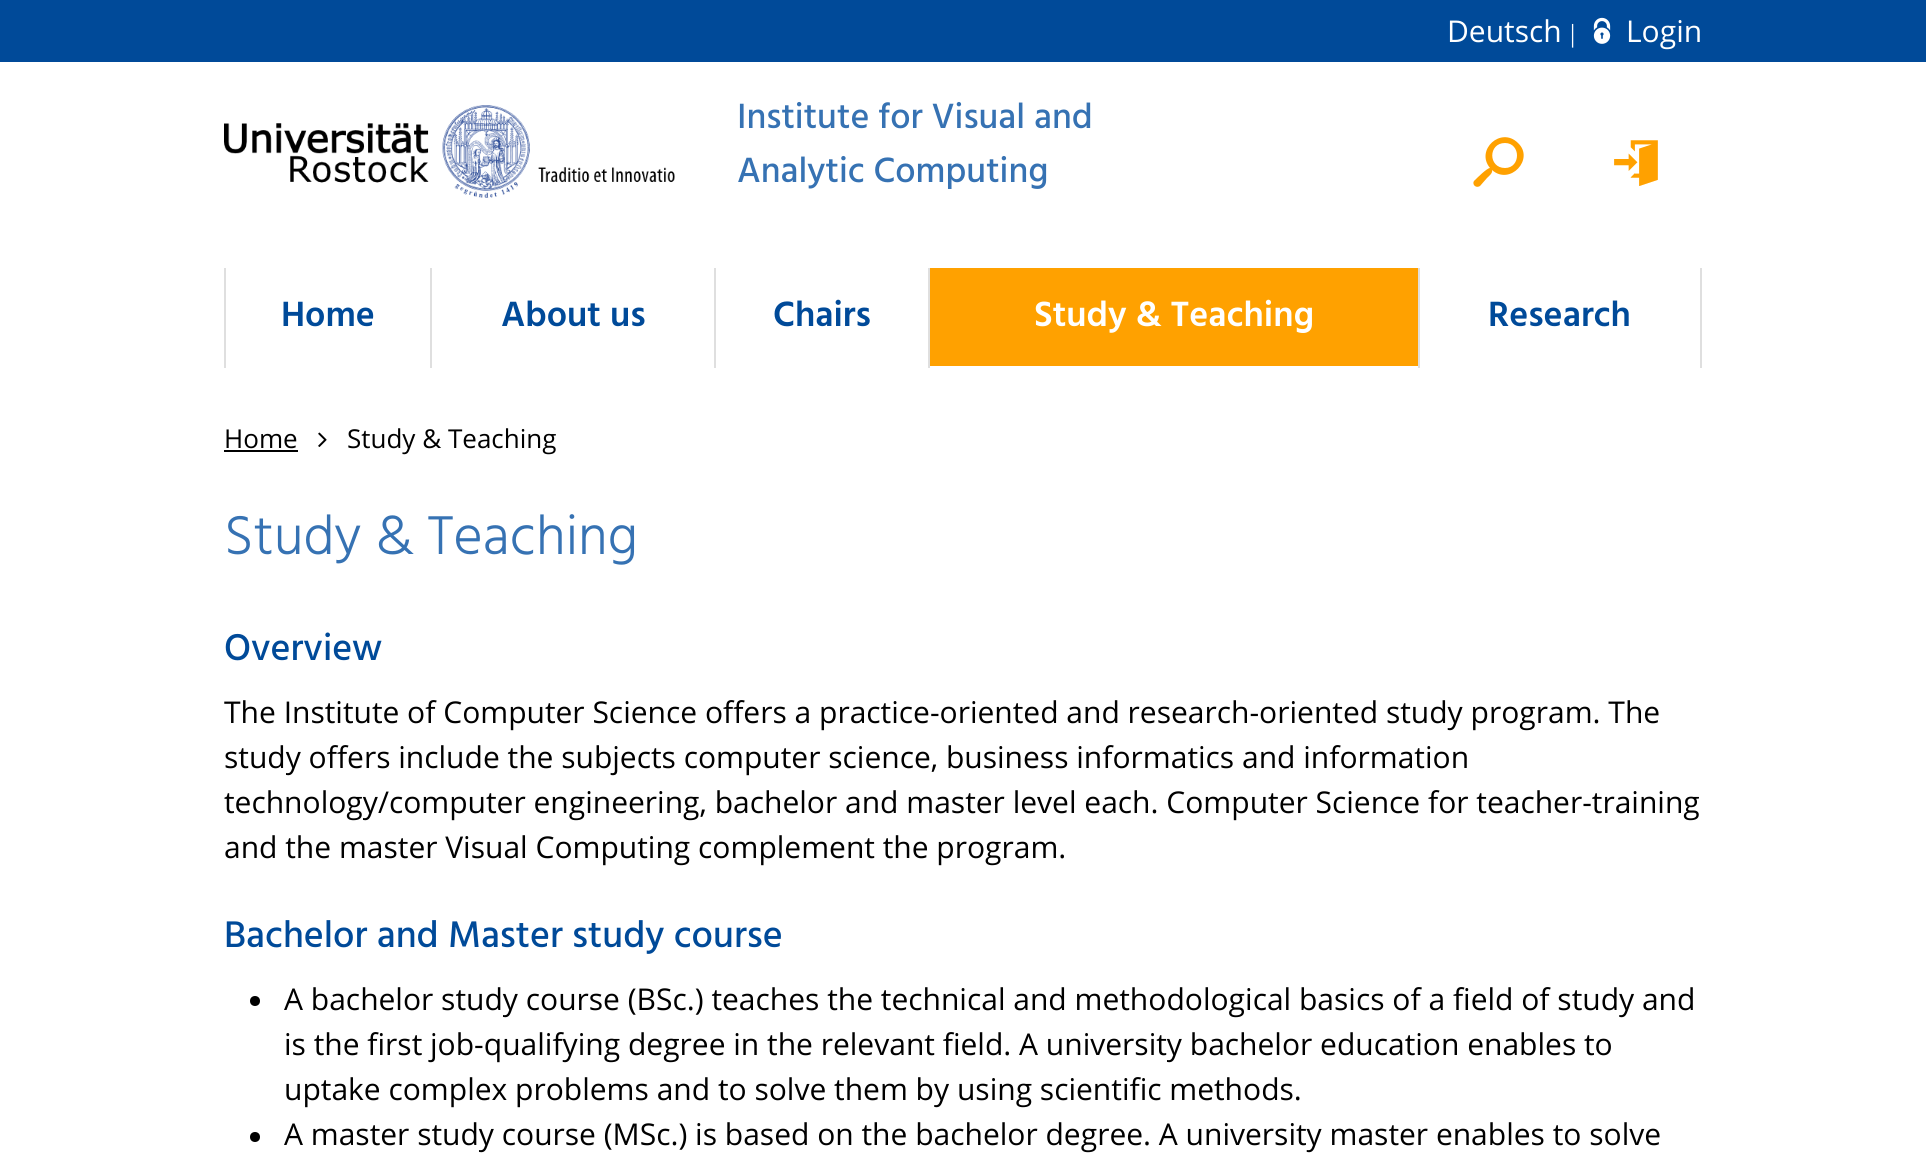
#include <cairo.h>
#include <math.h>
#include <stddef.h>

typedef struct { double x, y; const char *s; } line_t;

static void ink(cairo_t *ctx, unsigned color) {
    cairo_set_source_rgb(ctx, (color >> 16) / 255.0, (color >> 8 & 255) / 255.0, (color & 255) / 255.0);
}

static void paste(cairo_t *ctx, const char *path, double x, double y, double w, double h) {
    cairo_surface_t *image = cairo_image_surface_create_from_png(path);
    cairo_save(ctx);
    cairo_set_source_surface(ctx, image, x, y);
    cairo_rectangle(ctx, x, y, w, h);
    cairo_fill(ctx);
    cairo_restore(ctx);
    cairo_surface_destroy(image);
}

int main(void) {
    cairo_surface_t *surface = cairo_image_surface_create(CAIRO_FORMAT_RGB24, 1926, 1161);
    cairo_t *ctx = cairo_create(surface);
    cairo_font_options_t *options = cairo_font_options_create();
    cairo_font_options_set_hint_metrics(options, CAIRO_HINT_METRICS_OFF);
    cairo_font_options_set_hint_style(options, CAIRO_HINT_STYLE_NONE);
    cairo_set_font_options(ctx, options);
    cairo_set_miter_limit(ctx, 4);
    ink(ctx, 0xFFFFFF);
    cairo_paint(ctx);
    ink(ctx, 0x004A99);
    cairo_rectangle(ctx, 0, 0, 1926, 62);
    cairo_fill(ctx);
    cairo_select_font_face(ctx, "Open Sans", CAIRO_FONT_SLANT_NORMAL, CAIRO_FONT_WEIGHT_NORMAL);
    cairo_set_font_size(ctx, 30);
    ink(ctx, 0xFFFFFF);
    cairo_move_to(ctx, 1447, 42);
    cairo_show_text(ctx, "Deutsch");
    cairo_select_font_face(ctx, "Liberation Serif", CAIRO_FONT_SLANT_NORMAL, CAIRO_FONT_WEIGHT_NORMAL);
    cairo_set_font_size(ctx, 26);
    cairo_move_to(ctx, 1570, 42);
    cairo_show_text(ctx, "|");
    paste(ctx, "media/1.png", 1593, 17, 18, 27);
    cairo_select_font_face(ctx, "Open Sans", CAIRO_FONT_SLANT_NORMAL, CAIRO_FONT_WEIGHT_NORMAL);
    cairo_set_font_size(ctx, 30);
    cairo_move_to(ctx, 1626, 42);
    cairo_show_text(ctx, "Login");
    paste(ctx, "media/2.png", 224, 105, 451, 93);
    cairo_select_font_face(ctx, "Hind Medium", CAIRO_FONT_SLANT_NORMAL, CAIRO_FONT_WEIGHT_NORMAL);
    cairo_set_font_size(ctx, 36);
    ink(ctx, 0x3672B3);
    cairo_move_to(ctx, 737, 128);
    cairo_show_text(ctx, "Institute for Visual and");
    cairo_move_to(ctx, 737, 182);
    cairo_show_text(ctx, "Analytic Computing");
    ink(ctx, 0xFFA100);
    cairo_new_path(ctx);
    cairo_move_to(ctx, 1475, 180);
    cairo_curve_to(ctx, 1477, 178, 1487, 168, 1490, 168);
    cairo_curve_to(ctx, 1475, 150, 1501, 126, 1518, 143);
    cairo_curve_to(ctx, 1535, 159, 1510, 186, 1492, 170);
    cairo_curve_to(ctx, 1493, 173, 1489, 176, 1487, 178);
    cairo_line_to(ctx, 1480, 186);
    cairo_curve_to(ctx, 1475, 189, 1471, 183, 1475, 180);
    cairo_close_path(ctx);
    cairo_move_to(ctx, 1505, 168);
    cairo_curve_to(ctx, 1521, 168, 1521, 143, 1505, 143);
    cairo_curve_to(ctx, 1488, 143, 1488, 168, 1505, 168);
    cairo_close_path(ctx);
    cairo_fill(ctx);
    paste(ctx, "media/3.png", 1614, 140, 44, 46);
    ink(ctx, 0xDFDFDF);
    cairo_rectangle(ctx, 224, 268, 2, 100);
    cairo_fill(ctx);
    cairo_select_font_face(ctx, "Hind SemiBold", CAIRO_FONT_SLANT_NORMAL, CAIRO_FONT_WEIGHT_NORMAL);
    ink(ctx, 0x004A99);
    cairo_move_to(ctx, 281, 326);
    cairo_show_text(ctx, "Home");
    ink(ctx, 0xDFDFDF);
    cairo_rectangle(ctx, 430, 268, 2, 100);
    cairo_fill(ctx);
    ink(ctx, 0x004A99);
    cairo_move_to(ctx, 501, 326);
    cairo_show_text(ctx, "About us");
    ink(ctx, 0xDFDFDF);
    cairo_rectangle(ctx, 714, 268, 2, 100);
    cairo_fill(ctx);
    ink(ctx, 0x004A99);
    cairo_move_to(ctx, 773, 326);
    cairo_show_text(ctx, "Chairs");
    ink(ctx, 0xDFDFDF);
    cairo_rectangle(ctx, 928, 268, 2, 100);
    cairo_fill(ctx);
    ink(ctx, 0xFFA100);
    cairo_rectangle(ctx, 930, 268, 488, 98);
    cairo_fill(ctx);
    ink(ctx, 0xFFFFFF);
    cairo_move_to(ctx, 1034, 326);
    cairo_show_text(ctx, "Study & Teaching");
    ink(ctx, 0xDFDFDF);
    cairo_rectangle(ctx, 1700, 268, 2, 100);
    cairo_fill(ctx);
    cairo_rectangle(ctx, 1418, 268, 2, 100);
    cairo_fill(ctx);
    ink(ctx, 0x004A99);
    cairo_move_to(ctx, 1488, 326);
    cairo_show_text(ctx, "Research");
    cairo_select_font_face(ctx, "Open Sans", CAIRO_FONT_SLANT_NORMAL, CAIRO_FONT_WEIGHT_NORMAL);
    cairo_set_font_size(ctx, 26);
    ink(ctx, 0x000000);
    cairo_move_to(ctx, 224, 448);
    cairo_show_text(ctx, "Home");
    cairo_rectangle(ctx, 224, 450, 74, 2);
    cairo_fill(ctx);
    paste(ctx, "media/4.png", 318, 432, 9, 15);
    cairo_move_to(ctx, 347, 448);
    cairo_show_text(ctx, "Study & Teaching");
    cairo_select_font_face(ctx, "Hind Light", CAIRO_FONT_SLANT_NORMAL, CAIRO_FONT_WEIGHT_NORMAL);
    cairo_set_font_size(ctx, 56);
    ink(ctx, 0x3672B3);
    cairo_move_to(ctx, 224, 554);
    cairo_show_text(ctx, "Study & Teaching");
    cairo_select_font_face(ctx, "Hind Medium", CAIRO_FONT_SLANT_NORMAL, CAIRO_FONT_WEIGHT_NORMAL);
    cairo_set_font_size(ctx, 38);
    ink(ctx, 0x004A99);
    cairo_move_to(ctx, 224, 660);
    cairo_show_text(ctx, "Overview");
    cairo_select_font_face(ctx, "Open Sans", CAIRO_FONT_SLANT_NORMAL, CAIRO_FONT_WEIGHT_NORMAL);
    cairo_set_font_size(ctx, 30);
    ink(ctx, 0x000000);
    {
        static const line_t items[] = {
            {224, 723, "The Institute of Computer Science offers a practice-oriented and research-oriented study program. The"},
            {224, 768, "study offers include the subjects computer science, business informatics and information"},
            {224, 813, "technology/computer engineering, bachelor and master level each. Computer Science for teacher-training"},
            {224, 858, "and the master Visual Computing complement the program."},
        };
        for (size_t i = 0; i < sizeof items / sizeof *items; i++) {
            cairo_move_to(ctx, items[i].x, items[i].y);
            cairo_show_text(ctx, items[i].s);
        }
    }
    cairo_select_font_face(ctx, "Hind Medium", CAIRO_FONT_SLANT_NORMAL, CAIRO_FONT_WEIGHT_NORMAL);
    cairo_set_font_size(ctx, 38);
    ink(ctx, 0x004A99);
    cairo_move_to(ctx, 224, 947);
    cairo_show_text(ctx, "Bachelor and Master study course");
    ink(ctx, 0x000000);
    cairo_new_path(ctx);
    cairo_arc(ctx, 255, 1001, 5, 0, 2 * M_PI);
    cairo_fill(ctx);
    cairo_select_font_face(ctx, "Open Sans", CAIRO_FONT_SLANT_NORMAL, CAIRO_FONT_WEIGHT_NORMAL);
    cairo_set_font_size(ctx, 30);
    {
        static const line_t items[] = {
            {284, 1010, "A bachelor study course (BSc.) teaches the technical and methodological basics of a field of study and"},
            {284, 1055, "is the first job-qualifying degree in the relevant field. A university bachelor education enables to"},
            {284, 1100, "uptake complex problems and to solve them by using scientific methods."},
        };
        for (size_t i = 0; i < sizeof items / sizeof *items; i++) {
            cairo_move_to(ctx, items[i].x, items[i].y);
            cairo_show_text(ctx, items[i].s);
        }
    }
    cairo_new_path(ctx);
    cairo_arc(ctx, 255, 1137, 5, 0, 2 * M_PI);
    cairo_fill(ctx);
    cairo_move_to(ctx, 284, 1145);
    cairo_show_text(ctx, "A master study course (MSc.) is based on the bachelor degree. A university master enables to solve");
    cairo_surface_write_to_png(surface, "image.png");
    cairo_font_options_destroy(options);
    cairo_destroy(ctx);
    cairo_surface_destroy(surface);
    return 0;
}
